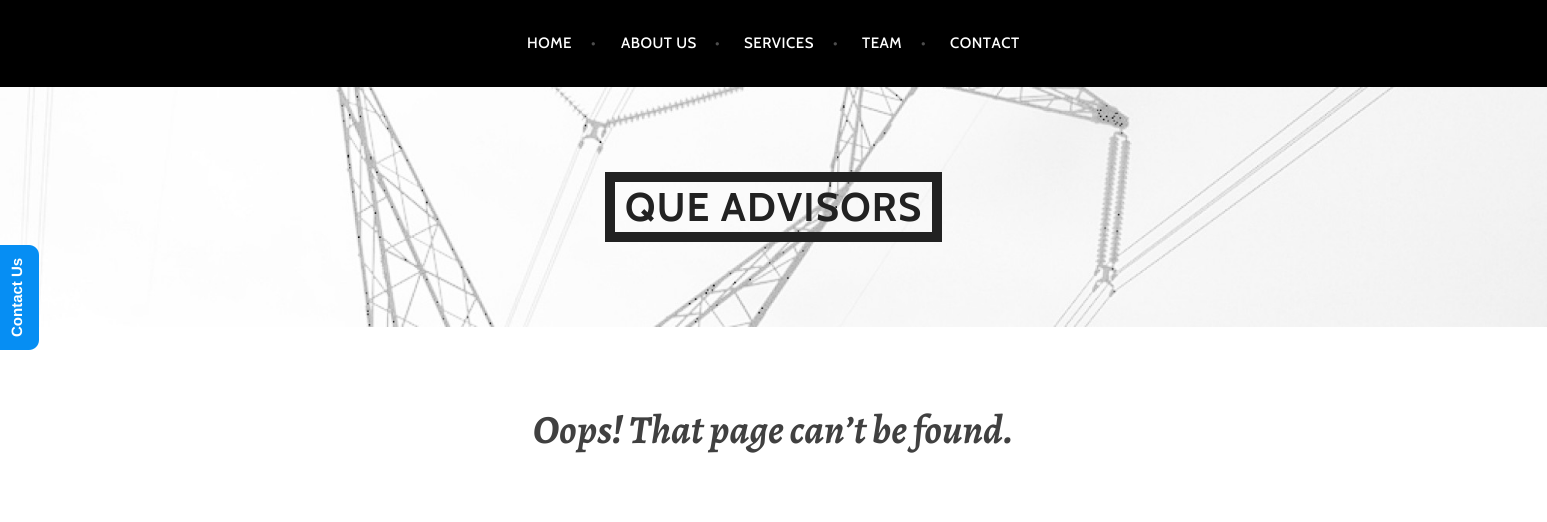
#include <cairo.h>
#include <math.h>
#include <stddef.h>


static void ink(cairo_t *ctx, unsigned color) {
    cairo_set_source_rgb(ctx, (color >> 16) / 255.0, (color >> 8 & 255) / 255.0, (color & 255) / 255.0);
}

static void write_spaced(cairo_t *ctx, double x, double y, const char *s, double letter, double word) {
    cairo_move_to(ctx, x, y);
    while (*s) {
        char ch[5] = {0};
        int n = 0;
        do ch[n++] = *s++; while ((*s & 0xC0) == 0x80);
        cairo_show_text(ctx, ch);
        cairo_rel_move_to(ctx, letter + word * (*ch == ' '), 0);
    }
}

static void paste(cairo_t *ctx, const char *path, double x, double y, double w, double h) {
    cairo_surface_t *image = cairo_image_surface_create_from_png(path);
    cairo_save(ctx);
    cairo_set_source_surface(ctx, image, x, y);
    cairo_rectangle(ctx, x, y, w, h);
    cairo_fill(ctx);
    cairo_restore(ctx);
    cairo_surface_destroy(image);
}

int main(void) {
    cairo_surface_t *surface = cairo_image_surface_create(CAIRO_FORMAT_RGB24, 1547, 522);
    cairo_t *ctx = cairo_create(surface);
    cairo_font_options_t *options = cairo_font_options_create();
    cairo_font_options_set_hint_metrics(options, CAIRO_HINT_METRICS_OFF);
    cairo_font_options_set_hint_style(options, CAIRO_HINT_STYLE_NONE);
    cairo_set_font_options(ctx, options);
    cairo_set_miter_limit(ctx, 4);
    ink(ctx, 0xFFFFFF);
    cairo_paint(ctx);
    paste(ctx, "media/1.png", 0, 87, 1547, 240);
    ink(ctx, 0x068EF3);
    cairo_new_path(ctx);
    cairo_move_to(ctx, -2, 350);
    cairo_line_to(ctx, -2, 245);
    cairo_line_to(ctx, 29, 245);
    cairo_curve_to(ctx, 34, 245, 39, 249, 39, 255);
    cairo_line_to(ctx, 39, 340);
    cairo_curve_to(ctx, 39, 346, 34, 350, 29, 350);
    cairo_close_path(ctx);
    cairo_fill(ctx);
    cairo_select_font_face(ctx, "Liberation Sans", CAIRO_FONT_SLANT_NORMAL, CAIRO_FONT_WEIGHT_BOLD);
    cairo_set_font_size(ctx, 15);
    ink(ctx, 0xFFFFFF);
    cairo_save(ctx);
    cairo_translate(ctx, 22, 337);
    cairo_rotate(ctx, -90 * M_PI / 180);
    cairo_move_to(ctx, 0, 0);
    cairo_show_text(ctx, "Contact Us");
    cairo_restore(ctx);
    ink(ctx, 0x000000);
    cairo_rectangle(ctx, 0, 0, 1547, 87);
    cairo_fill(ctx);
    cairo_select_font_face(ctx, "Cabin Medium", CAIRO_FONT_SLANT_NORMAL, CAIRO_FONT_WEIGHT_NORMAL);
    ink(ctx, 0xFFFFFF);
    write_spaced(ctx, 527, 48, "HOME", 0.5, 0);
    ink(ctx, 0x4D4D4D);
    write_spaced(ctx, 591, 48, "•", 0.5, 0);
    ink(ctx, 0xFFFFFF);
    write_spaced(ctx, 621, 48, "ABOUT US", 0.5, 0);
    ink(ctx, 0x4D4D4D);
    write_spaced(ctx, 715, 48, "•", 0.5, 0);
    ink(ctx, 0xFFFFFF);
    write_spaced(ctx, 744, 48, "SERVICES", 0.5, 0);
    ink(ctx, 0x4D4D4D);
    write_spaced(ctx, 833, 48, "•", 0.5, 0);
    ink(ctx, 0xFFFFFF);
    write_spaced(ctx, 862, 48, "TEAM", 0.5, 0);
    ink(ctx, 0x4D4D4D);
    write_spaced(ctx, 921, 48, "•", 0.5, 0);
    ink(ctx, 0xFFFFFF);
    write_spaced(ctx, 950, 48, "CONTACT", 0.5, 0);
    cairo_rectangle(ctx, 610, 177, 327, 60);
    ink(ctx, 0x222222);
    cairo_set_line_width(ctx, 10);
    cairo_stroke(ctx);
    cairo_select_font_face(ctx, "Cabin", CAIRO_FONT_SLANT_NORMAL, CAIRO_FONT_WEIGHT_BOLD);
    cairo_set_font_size(ctx, 40);
    write_spaced(ctx, 625, 221, "QUE ADVISORS", 1.25, 0);
    cairo_select_font_face(ctx, "Alegreya", CAIRO_FONT_SLANT_ITALIC, CAIRO_FONT_WEIGHT_BOLD);
    ink(ctx, 0x404040);
    cairo_move_to(ctx, 533, 443);
    cairo_show_text(ctx, "Oops! That page can’t be found.");
    cairo_surface_write_to_png(surface, "image.png");
    cairo_font_options_destroy(options);
    cairo_destroy(ctx);
    cairo_surface_destroy(surface);
    return 0;
}
